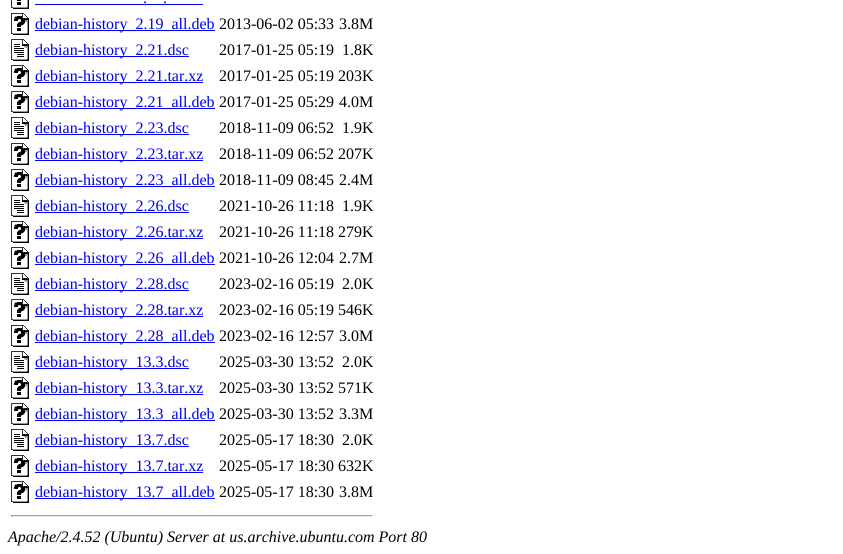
#include <cairo.h>
#include <math.h>
#include <stddef.h>

typedef struct { double x, y, w, h; unsigned color; } box_t;

static void ink(cairo_t *ctx, unsigned color) {
    cairo_set_source_rgb(ctx, (color >> 16) / 255.0, (color >> 8 & 255) / 255.0, (color & 255) / 255.0);
}

static void paste(cairo_t *ctx, const char *path, double x, double y, double w, double h) {
    cairo_surface_t *image = cairo_image_surface_create_from_png(path);
    cairo_save(ctx);
    cairo_set_source_surface(ctx, image, x, y);
    cairo_rectangle(ctx, x, y, w, h);
    cairo_fill(ctx);
    cairo_restore(ctx);
    cairo_surface_destroy(image);
}

int main(void) {
    cairo_surface_t *surface = cairo_image_surface_create(CAIRO_FORMAT_RGB24, 843, 554);
    cairo_t *ctx = cairo_create(surface);
    cairo_font_options_t *options = cairo_font_options_create();
    cairo_font_options_set_hint_metrics(options, CAIRO_HINT_METRICS_OFF);
    cairo_font_options_set_hint_style(options, CAIRO_HINT_STYLE_NONE);
    cairo_set_font_options(ctx, options);
    cairo_set_miter_limit(ctx, 4);
    ink(ctx, 0xFFFFFF);
    cairo_paint(ctx);
    paste(ctx, "media/1.png", 11, 0, 18, 9);
    cairo_select_font_face(ctx, "Liberation Serif", CAIRO_FONT_SLANT_NORMAL, CAIRO_FONT_WEIGHT_NORMAL);
    cairo_set_font_size(ctx, 16);
    ink(ctx, 0x0000EE);
    cairo_move_to(ctx, 143, 3);
    cairo_show_text(ctx, ".");
    cairo_rectangle(ctx, 35, 4, 168, 1);
    cairo_fill(ctx);
    cairo_move_to(ctx, 163, 3);
    cairo_show_text(ctx, ".");
    paste(ctx, "media/2.png", 11, 13, 18, 22);
    cairo_rectangle(ctx, 35, 30, 180, 1);
    cairo_fill(ctx);
    cairo_move_to(ctx, 35, 29);
    cairo_show_text(ctx, "debian-history_2.19_all.deb");
    ink(ctx, 0x000000);
    cairo_move_to(ctx, 219, 29);
    cairo_show_text(ctx, "2013-06-02 05:33");
    cairo_move_to(ctx, 339, 29);
    cairo_show_text(ctx, "3.8M");
    paste(ctx, "media/3.png", 11, 39, 18, 22);
    ink(ctx, 0x0000EE);
    cairo_rectangle(ctx, 35, 56, 154, 1);
    cairo_fill(ctx);
    cairo_move_to(ctx, 35, 55);
    cairo_show_text(ctx, "debian-history_2.21.dsc");
    ink(ctx, 0x000000);
    cairo_move_to(ctx, 219, 55);
    cairo_show_text(ctx, "2017-01-25 05:19");
    cairo_move_to(ctx, 342, 55);
    cairo_show_text(ctx, "1.8K");
    paste(ctx, "media/2.png", 11, 65, 18, 22);
    ink(ctx, 0x0000EE);
    cairo_rectangle(ctx, 35, 82, 168, 1);
    cairo_fill(ctx);
    cairo_move_to(ctx, 35, 81);
    cairo_show_text(ctx, "debian-history_2.21.tar.xz");
    ink(ctx, 0x000000);
    cairo_move_to(ctx, 219, 81);
    cairo_show_text(ctx, "2017-01-25 05:19 203K");
    paste(ctx, "media/2.png", 11, 91, 18, 22);
    ink(ctx, 0x0000EE);
    cairo_rectangle(ctx, 35, 108, 180, 1);
    cairo_fill(ctx);
    cairo_move_to(ctx, 35, 107);
    cairo_show_text(ctx, "debian-history_2.21_all.deb");
    ink(ctx, 0x000000);
    cairo_move_to(ctx, 219, 107);
    cairo_show_text(ctx, "2017-01-25 05:29");
    cairo_move_to(ctx, 339, 107);
    cairo_show_text(ctx, "4.0M");
    paste(ctx, "media/3.png", 11, 117, 18, 22);
    ink(ctx, 0x0000EE);
    cairo_rectangle(ctx, 35, 134, 154, 1);
    cairo_fill(ctx);
    cairo_move_to(ctx, 35, 133);
    cairo_show_text(ctx, "debian-history_2.23.dsc");
    ink(ctx, 0x000000);
    cairo_move_to(ctx, 219, 133);
    cairo_show_text(ctx, "2018-11-09 06:52");
    cairo_move_to(ctx, 342, 133);
    cairo_show_text(ctx, "1.9K");
    paste(ctx, "media/2.png", 11, 143, 18, 22);
    ink(ctx, 0x0000EE);
    cairo_rectangle(ctx, 35, 160, 168, 1);
    cairo_fill(ctx);
    cairo_move_to(ctx, 35, 159);
    cairo_show_text(ctx, "debian-history_2.23.tar.xz");
    ink(ctx, 0x000000);
    cairo_move_to(ctx, 219, 159);
    cairo_show_text(ctx, "2018-11-09 06:52 207K");
    paste(ctx, "media/2.png", 11, 169, 18, 22);
    ink(ctx, 0x0000EE);
    cairo_rectangle(ctx, 35, 186, 180, 1);
    cairo_fill(ctx);
    cairo_move_to(ctx, 35, 185);
    cairo_show_text(ctx, "debian-history_2.23_all.deb");
    ink(ctx, 0x000000);
    cairo_move_to(ctx, 219, 185);
    cairo_show_text(ctx, "2018-11-09 08:45");
    cairo_move_to(ctx, 339, 185);
    cairo_show_text(ctx, "2.4M");
    paste(ctx, "media/3.png", 11, 195, 18, 22);
    ink(ctx, 0x0000EE);
    cairo_rectangle(ctx, 35, 212, 154, 1);
    cairo_fill(ctx);
    cairo_move_to(ctx, 35, 211);
    cairo_show_text(ctx, "debian-history_2.26.dsc");
    ink(ctx, 0x000000);
    cairo_move_to(ctx, 219, 211);
    cairo_show_text(ctx, "2021-10-26 11:18");
    cairo_move_to(ctx, 342, 211);
    cairo_show_text(ctx, "1.9K");
    paste(ctx, "media/2.png", 11, 221, 18, 22);
    ink(ctx, 0x0000EE);
    cairo_rectangle(ctx, 35, 238, 168, 1);
    cairo_fill(ctx);
    cairo_move_to(ctx, 35, 237);
    cairo_show_text(ctx, "debian-history_2.26.tar.xz");
    ink(ctx, 0x000000);
    cairo_move_to(ctx, 219, 237);
    cairo_show_text(ctx, "2021-10-26 11:18 279K");
    paste(ctx, "media/2.png", 11, 247, 18, 22);
    ink(ctx, 0x0000EE);
    cairo_rectangle(ctx, 35, 264, 180, 1);
    cairo_fill(ctx);
    cairo_move_to(ctx, 35, 263);
    cairo_show_text(ctx, "debian-history_2.26_all.deb");
    ink(ctx, 0x000000);
    cairo_move_to(ctx, 219, 263);
    cairo_show_text(ctx, "2021-10-26 12:04");
    cairo_move_to(ctx, 339, 263);
    cairo_show_text(ctx, "2.7M");
    paste(ctx, "media/3.png", 11, 273, 18, 22);
    ink(ctx, 0x0000EE);
    cairo_rectangle(ctx, 35, 290, 154, 1);
    cairo_fill(ctx);
    cairo_move_to(ctx, 35, 289);
    cairo_show_text(ctx, "debian-history_2.28.dsc");
    ink(ctx, 0x000000);
    cairo_move_to(ctx, 219, 289);
    cairo_show_text(ctx, "2023-02-16 05:19");
    cairo_move_to(ctx, 342, 289);
    cairo_show_text(ctx, "2.0K");
    paste(ctx, "media/2.png", 11, 299, 18, 22);
    ink(ctx, 0x0000EE);
    cairo_rectangle(ctx, 35, 316, 168, 1);
    cairo_fill(ctx);
    cairo_move_to(ctx, 35, 315);
    cairo_show_text(ctx, "debian-history_2.28.tar.xz");
    ink(ctx, 0x000000);
    cairo_move_to(ctx, 219, 315);
    cairo_show_text(ctx, "2023-02-16 05:19 546K");
    paste(ctx, "media/2.png", 11, 325, 18, 22);
    ink(ctx, 0x0000EE);
    cairo_rectangle(ctx, 35, 342, 180, 1);
    cairo_fill(ctx);
    cairo_move_to(ctx, 35, 341);
    cairo_show_text(ctx, "debian-history_2.28_all.deb");
    ink(ctx, 0x000000);
    cairo_move_to(ctx, 219, 341);
    cairo_show_text(ctx, "2023-02-16 12:57");
    cairo_move_to(ctx, 339, 341);
    cairo_show_text(ctx, "3.0M");
    paste(ctx, "media/3.png", 11, 351, 18, 22);
    ink(ctx, 0x0000EE);
    cairo_rectangle(ctx, 35, 368, 154, 1);
    cairo_fill(ctx);
    cairo_move_to(ctx, 35, 367);
    cairo_show_text(ctx, "debian-history_13.3.dsc");
    ink(ctx, 0x000000);
    cairo_move_to(ctx, 219, 367);
    cairo_show_text(ctx, "2025-03-30 13:52");
    cairo_move_to(ctx, 342, 367);
    cairo_show_text(ctx, "2.0K");
    paste(ctx, "media/2.png", 11, 377, 18, 22);
    ink(ctx, 0x0000EE);
    cairo_rectangle(ctx, 35, 394, 168, 1);
    cairo_fill(ctx);
    cairo_move_to(ctx, 35, 393);
    cairo_show_text(ctx, "debian-history_13.3.tar.xz");
    ink(ctx, 0x000000);
    cairo_move_to(ctx, 219, 393);
    cairo_show_text(ctx, "2025-03-30 13:52 571K");
    paste(ctx, "media/2.png", 11, 403, 18, 22);
    ink(ctx, 0x0000EE);
    cairo_rectangle(ctx, 35, 420, 180, 1);
    cairo_fill(ctx);
    cairo_move_to(ctx, 35, 419);
    cairo_show_text(ctx, "debian-history_13.3_all.deb");
    ink(ctx, 0x000000);
    cairo_move_to(ctx, 219, 419);
    cairo_show_text(ctx, "2025-03-30 13:52");
    cairo_move_to(ctx, 339, 419);
    cairo_show_text(ctx, "3.3M");
    paste(ctx, "media/3.png", 11, 429, 18, 22);
    ink(ctx, 0x0000EE);
    cairo_rectangle(ctx, 35, 446, 154, 1);
    cairo_fill(ctx);
    cairo_move_to(ctx, 35, 445);
    cairo_show_text(ctx, "debian-history_13.7.dsc");
    ink(ctx, 0x000000);
    cairo_move_to(ctx, 219, 445);
    cairo_show_text(ctx, "2025-05-17 18:30");
    cairo_move_to(ctx, 342, 445);
    cairo_show_text(ctx, "2.0K");
    paste(ctx, "media/2.png", 11, 455, 18, 22);
    ink(ctx, 0x0000EE);
    cairo_rectangle(ctx, 35, 472, 168, 1);
    cairo_fill(ctx);
    cairo_move_to(ctx, 35, 471);
    cairo_show_text(ctx, "debian-history_13.7.tar.xz");
    ink(ctx, 0x000000);
    cairo_move_to(ctx, 219, 471);
    cairo_show_text(ctx, "2025-05-17 18:30 632K");
    paste(ctx, "media/2.png", 11, 481, 18, 22);
    ink(ctx, 0x0000EE);
    cairo_rectangle(ctx, 35, 498, 180, 1);
    cairo_fill(ctx);
    cairo_move_to(ctx, 35, 497);
    cairo_show_text(ctx, "debian-history_13.7_all.deb");
    ink(ctx, 0x000000);
    cairo_move_to(ctx, 219, 497);
    cairo_show_text(ctx, "2025-05-17 18:30");
    cairo_move_to(ctx, 339, 497);
    cairo_show_text(ctx, "3.8M");
    {
        static const box_t items[] = {
            {11, 515, 362, 1, 0x9F9F9F},
            {372, 515, 1, 2, 0xEEEEEE},
            {11, 516, 362, 1, 0xEEEEEE},
            {11, 515, 1, 2, 0x9F9F9F},
        };
        for (size_t i = 0; i < sizeof items / sizeof *items; i++) {
            ink(ctx, items[i].color);
            cairo_rectangle(ctx, items[i].x, items[i].y, items[i].w, items[i].h);
            cairo_fill(ctx);
        }
    }
    cairo_select_font_face(ctx, "Liberation Serif", CAIRO_FONT_SLANT_ITALIC, CAIRO_FONT_WEIGHT_NORMAL);
    ink(ctx, 0x000000);
    cairo_move_to(ctx, 8, 542);
    cairo_show_text(ctx, "Apache/2.4.52 (Ubuntu) Server at us.archive.ubuntu.com Port 80");
    cairo_surface_write_to_png(surface, "image.png");
    cairo_font_options_destroy(options);
    cairo_destroy(ctx);
    cairo_surface_destroy(surface);
    return 0;
}
